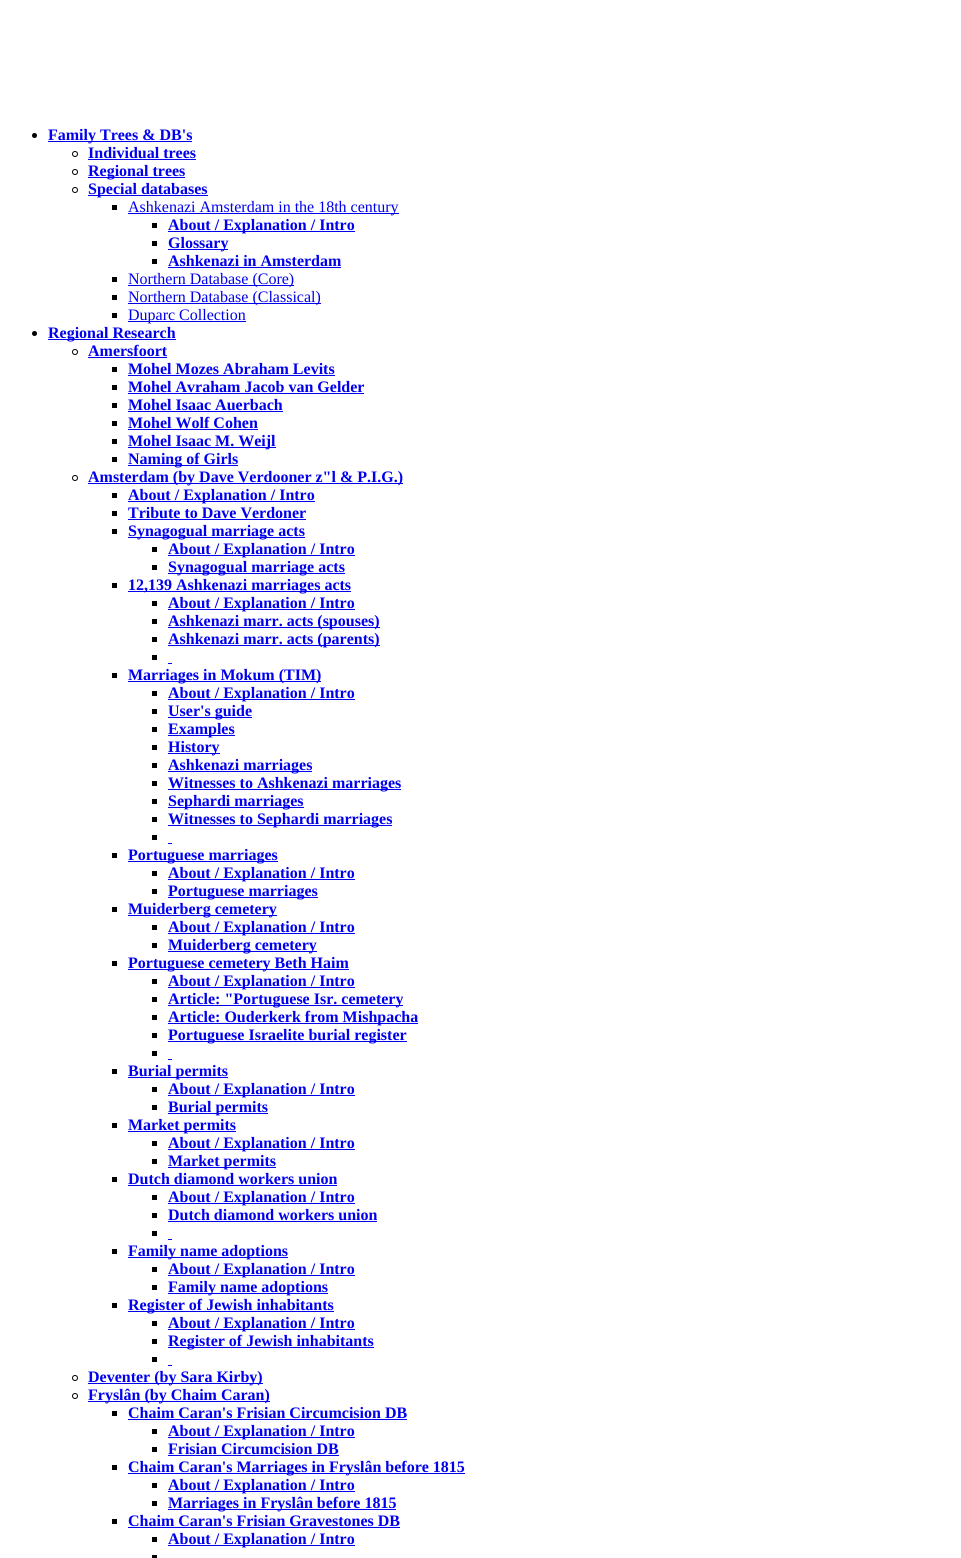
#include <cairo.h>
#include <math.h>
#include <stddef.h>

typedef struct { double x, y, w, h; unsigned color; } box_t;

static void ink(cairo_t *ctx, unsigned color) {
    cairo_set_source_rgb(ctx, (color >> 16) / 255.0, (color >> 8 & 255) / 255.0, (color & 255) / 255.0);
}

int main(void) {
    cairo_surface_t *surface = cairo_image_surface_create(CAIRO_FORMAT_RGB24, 961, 1558);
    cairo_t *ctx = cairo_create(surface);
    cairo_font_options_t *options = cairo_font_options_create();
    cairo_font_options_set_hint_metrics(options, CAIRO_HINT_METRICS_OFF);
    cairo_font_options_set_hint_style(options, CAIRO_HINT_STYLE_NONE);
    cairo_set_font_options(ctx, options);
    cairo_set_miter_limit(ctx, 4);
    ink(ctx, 0xFFFFFF);
    cairo_paint(ctx);
    ink(ctx, 0x000000);
    cairo_arc(ctx, 34.5, 135.5, 2.5, 0, 2 * M_PI);
    cairo_fill(ctx);
    ink(ctx, 0x0000EE);
    cairo_rectangle(ctx, 48, 141, 144, 1);
    cairo_fill(ctx);
    cairo_select_font_face(ctx, "Liberation Serif", CAIRO_FONT_SLANT_NORMAL, CAIRO_FONT_WEIGHT_BOLD);
    cairo_set_font_size(ctx, 16);
    cairo_move_to(ctx, 48, 140);
    cairo_show_text(ctx, "Family Trees & DB's");
    cairo_new_path(ctx);
    cairo_arc(ctx, 75, 154, 2.5, 0, 2 * M_PI);
    ink(ctx, 0x000000);
    cairo_set_line_width(ctx, 1);
    cairo_stroke(ctx);
    ink(ctx, 0x0000EE);
    cairo_move_to(ctx, 88, 158);
    cairo_show_text(ctx, "Individual trees");
    cairo_rectangle(ctx, 88, 159, 108, 1);
    cairo_fill(ctx);
    cairo_arc(ctx, 75, 172, 2.5, 0, 2 * M_PI);
    ink(ctx, 0x000000);
    cairo_stroke(ctx);
    ink(ctx, 0x0000EE);
    cairo_rectangle(ctx, 88, 177, 97, 1);
    cairo_fill(ctx);
    cairo_move_to(ctx, 88, 176);
    cairo_show_text(ctx, "Regional trees");
    cairo_new_path(ctx);
    cairo_arc(ctx, 75, 190, 2.5, 0, 2 * M_PI);
    ink(ctx, 0x000000);
    cairo_stroke(ctx);
    ink(ctx, 0x0000EE);
    cairo_rectangle(ctx, 88, 195, 120, 1);
    cairo_fill(ctx);
    cairo_move_to(ctx, 88, 194);
    cairo_show_text(ctx, "Special databases");
    ink(ctx, 0x000000);
    cairo_rectangle(ctx, 112, 205, 5, 5);
    cairo_fill(ctx);
    ink(ctx, 0x0000EE);
    cairo_rectangle(ctx, 128, 213, 271, 1);
    cairo_fill(ctx);
    cairo_select_font_face(ctx, "Liberation Serif", CAIRO_FONT_SLANT_NORMAL, CAIRO_FONT_WEIGHT_NORMAL);
    cairo_move_to(ctx, 128, 212);
    cairo_show_text(ctx, "Ashkenazi Amsterdam in the 18th century");
    ink(ctx, 0x000000);
    cairo_rectangle(ctx, 152, 223, 5, 5);
    cairo_fill(ctx);
    ink(ctx, 0x0000EE);
    cairo_rectangle(ctx, 168, 231, 187, 1);
    cairo_fill(ctx);
    cairo_select_font_face(ctx, "Liberation Serif", CAIRO_FONT_SLANT_NORMAL, CAIRO_FONT_WEIGHT_BOLD);
    cairo_move_to(ctx, 168, 230);
    cairo_show_text(ctx, "About / Explanation / Intro");
    ink(ctx, 0x000000);
    cairo_rectangle(ctx, 152, 241, 5, 5);
    cairo_fill(ctx);
    ink(ctx, 0x0000EE);
    cairo_rectangle(ctx, 168, 249, 60, 1);
    cairo_fill(ctx);
    cairo_move_to(ctx, 168, 248);
    cairo_show_text(ctx, "Glossary");
    ink(ctx, 0x000000);
    cairo_rectangle(ctx, 152, 259, 5, 5);
    cairo_fill(ctx);
    ink(ctx, 0x0000EE);
    cairo_move_to(ctx, 168, 266);
    cairo_show_text(ctx, "Ashkenazi in Amsterdam");
    {
        static const box_t items[] = {
            {168, 267, 173, 1, 0x0000EE},
            {112, 277, 5, 5, 0x000000},
            {128, 285, 166, 1, 0x0000EE},
        };
        for (size_t i = 0; i < sizeof items / sizeof *items; i++) {
            ink(ctx, items[i].color);
            cairo_rectangle(ctx, items[i].x, items[i].y, items[i].w, items[i].h);
            cairo_fill(ctx);
        }
    }
    cairo_select_font_face(ctx, "Liberation Serif", CAIRO_FONT_SLANT_NORMAL, CAIRO_FONT_WEIGHT_NORMAL);
    cairo_move_to(ctx, 128, 284);
    cairo_show_text(ctx, "Northern Database (Core)");
    ink(ctx, 0x000000);
    cairo_rectangle(ctx, 112, 295, 5, 5);
    cairo_fill(ctx);
    ink(ctx, 0x0000EE);
    cairo_rectangle(ctx, 128, 303, 193, 1);
    cairo_fill(ctx);
    cairo_move_to(ctx, 128, 302);
    cairo_show_text(ctx, "Northern Database (Classical)");
    ink(ctx, 0x000000);
    cairo_rectangle(ctx, 112, 313, 5, 5);
    cairo_fill(ctx);
    ink(ctx, 0x0000EE);
    cairo_rectangle(ctx, 128, 321, 118, 1);
    cairo_fill(ctx);
    cairo_move_to(ctx, 128, 320);
    cairo_show_text(ctx, "Duparc Collection");
    ink(ctx, 0x000000);
    cairo_new_path(ctx);
    cairo_arc(ctx, 34.5, 333.5, 2.5, 0, 2 * M_PI);
    cairo_fill(ctx);
    ink(ctx, 0x0000EE);
    cairo_rectangle(ctx, 48, 339, 128, 1);
    cairo_fill(ctx);
    cairo_select_font_face(ctx, "Liberation Serif", CAIRO_FONT_SLANT_NORMAL, CAIRO_FONT_WEIGHT_BOLD);
    cairo_move_to(ctx, 48, 338);
    cairo_show_text(ctx, "Regional Research");
    cairo_new_path(ctx);
    cairo_arc(ctx, 75, 352, 2.5, 0, 2 * M_PI);
    ink(ctx, 0x000000);
    cairo_stroke(ctx);
    ink(ctx, 0x0000EE);
    cairo_move_to(ctx, 88, 356);
    cairo_show_text(ctx, "Amersfoort");
    cairo_rectangle(ctx, 88, 357, 79, 1);
    cairo_fill(ctx);
    ink(ctx, 0x000000);
    cairo_rectangle(ctx, 112, 367, 5, 5);
    cairo_fill(ctx);
    ink(ctx, 0x0000EE);
    cairo_move_to(ctx, 128, 374);
    cairo_show_text(ctx, "Mohel Mozes Abraham Levits");
    cairo_rectangle(ctx, 128, 375, 207, 1);
    cairo_fill(ctx);
    ink(ctx, 0x000000);
    cairo_rectangle(ctx, 112, 385, 5, 5);
    cairo_fill(ctx);
    ink(ctx, 0x0000EE);
    cairo_move_to(ctx, 128, 392);
    cairo_show_text(ctx, "Mohel Avraham Jacob van Gelder");
    cairo_rectangle(ctx, 128, 393, 236, 1);
    cairo_fill(ctx);
    ink(ctx, 0x000000);
    cairo_rectangle(ctx, 112, 403, 5, 5);
    cairo_fill(ctx);
    ink(ctx, 0x0000EE);
    cairo_move_to(ctx, 128, 410);
    cairo_show_text(ctx, "Mohel Isaac Auerbach");
    cairo_rectangle(ctx, 128, 411, 155, 1);
    cairo_fill(ctx);
    ink(ctx, 0x000000);
    cairo_rectangle(ctx, 112, 421, 5, 5);
    cairo_fill(ctx);
    ink(ctx, 0x0000EE);
    cairo_move_to(ctx, 128, 428);
    cairo_show_text(ctx, "Mohel Wolf Cohen");
    {
        static const box_t items[] = {
            {128, 429, 130, 1, 0x0000EE},
            {112, 439, 5, 5, 0x000000},
            {128, 447, 148, 1, 0x0000EE},
        };
        for (size_t i = 0; i < sizeof items / sizeof *items; i++) {
            ink(ctx, items[i].color);
            cairo_rectangle(ctx, items[i].x, items[i].y, items[i].w, items[i].h);
            cairo_fill(ctx);
        }
    }
    cairo_move_to(ctx, 128, 446);
    cairo_show_text(ctx, "Mohel Isaac M. Weijl");
    ink(ctx, 0x000000);
    cairo_rectangle(ctx, 112, 457, 5, 5);
    cairo_fill(ctx);
    ink(ctx, 0x0000EE);
    cairo_rectangle(ctx, 128, 465, 110, 1);
    cairo_fill(ctx);
    cairo_move_to(ctx, 128, 464);
    cairo_show_text(ctx, "Naming of Girls");
    cairo_new_path(ctx);
    cairo_arc(ctx, 75, 478, 2.5, 0, 2 * M_PI);
    ink(ctx, 0x000000);
    cairo_stroke(ctx);
    ink(ctx, 0x0000EE);
    cairo_rectangle(ctx, 88, 483, 315, 1);
    cairo_fill(ctx);
    cairo_move_to(ctx, 88, 482);
    cairo_show_text(ctx, "Amsterdam (by Dave Verdooner z\"l & P.I.G.)");
    ink(ctx, 0x000000);
    cairo_rectangle(ctx, 112, 493, 5, 5);
    cairo_fill(ctx);
    ink(ctx, 0x0000EE);
    cairo_rectangle(ctx, 128, 501, 187, 1);
    cairo_fill(ctx);
    cairo_move_to(ctx, 128, 500);
    cairo_show_text(ctx, "About / Explanation / Intro");
    ink(ctx, 0x000000);
    cairo_rectangle(ctx, 112, 511, 5, 5);
    cairo_fill(ctx);
    ink(ctx, 0x0000EE);
    cairo_move_to(ctx, 128, 518);
    cairo_show_text(ctx, "Tribute to Dave Verdoner");
    {
        static const box_t items[] = {
            {128, 519, 178, 1, 0x0000EE},
            {112, 529, 5, 5, 0x000000},
            {128, 537, 177, 1, 0x0000EE},
        };
        for (size_t i = 0; i < sizeof items / sizeof *items; i++) {
            ink(ctx, items[i].color);
            cairo_rectangle(ctx, items[i].x, items[i].y, items[i].w, items[i].h);
            cairo_fill(ctx);
        }
    }
    cairo_move_to(ctx, 128, 536);
    cairo_show_text(ctx, "Synagogual marriage acts");
    ink(ctx, 0x000000);
    cairo_rectangle(ctx, 152, 547, 5, 5);
    cairo_fill(ctx);
    ink(ctx, 0x0000EE);
    cairo_rectangle(ctx, 168, 555, 187, 1);
    cairo_fill(ctx);
    cairo_move_to(ctx, 168, 554);
    cairo_show_text(ctx, "About / Explanation / Intro");
    ink(ctx, 0x000000);
    cairo_rectangle(ctx, 152, 565, 5, 5);
    cairo_fill(ctx);
    ink(ctx, 0x0000EE);
    cairo_rectangle(ctx, 168, 573, 177, 1);
    cairo_fill(ctx);
    cairo_move_to(ctx, 168, 572);
    cairo_show_text(ctx, "Synagogual marriage acts");
    ink(ctx, 0x000000);
    cairo_rectangle(ctx, 112, 583, 5, 5);
    cairo_fill(ctx);
    ink(ctx, 0x0000EE);
    cairo_rectangle(ctx, 128, 591, 223, 1);
    cairo_fill(ctx);
    cairo_move_to(ctx, 128, 590);
    cairo_show_text(ctx, "12,139 Ashkenazi marriages acts");
    ink(ctx, 0x000000);
    cairo_rectangle(ctx, 152, 601, 5, 5);
    cairo_fill(ctx);
    ink(ctx, 0x0000EE);
    cairo_rectangle(ctx, 168, 609, 187, 1);
    cairo_fill(ctx);
    cairo_move_to(ctx, 168, 608);
    cairo_show_text(ctx, "About / Explanation / Intro");
    ink(ctx, 0x000000);
    cairo_rectangle(ctx, 152, 619, 5, 5);
    cairo_fill(ctx);
    ink(ctx, 0x0000EE);
    cairo_rectangle(ctx, 168, 627, 212, 1);
    cairo_fill(ctx);
    cairo_move_to(ctx, 168, 626);
    cairo_show_text(ctx, "Ashkenazi marr. acts (spouses)");
    ink(ctx, 0x000000);
    cairo_rectangle(ctx, 152, 637, 5, 5);
    cairo_fill(ctx);
    ink(ctx, 0x0000EE);
    cairo_rectangle(ctx, 168, 645, 212, 1);
    cairo_fill(ctx);
    cairo_move_to(ctx, 168, 644);
    cairo_show_text(ctx, "Ashkenazi marr. acts (parents)");
    {
        static const box_t items[] = {
            {152, 655, 5, 5, 0x000000},
            {168, 663, 4, 1, 0x0000EE},
            {112, 673, 5, 5, 0x000000},
            {128, 681, 193, 1, 0x0000EE},
        };
        for (size_t i = 0; i < sizeof items / sizeof *items; i++) {
            ink(ctx, items[i].color);
            cairo_rectangle(ctx, items[i].x, items[i].y, items[i].w, items[i].h);
            cairo_fill(ctx);
        }
    }
    cairo_move_to(ctx, 128, 680);
    cairo_show_text(ctx, "Marriages in Mokum (TIM)");
    ink(ctx, 0x000000);
    cairo_rectangle(ctx, 152, 691, 5, 5);
    cairo_fill(ctx);
    ink(ctx, 0x0000EE);
    cairo_rectangle(ctx, 168, 699, 187, 1);
    cairo_fill(ctx);
    cairo_move_to(ctx, 168, 698);
    cairo_show_text(ctx, "About / Explanation / Intro");
    ink(ctx, 0x000000);
    cairo_rectangle(ctx, 152, 709, 5, 5);
    cairo_fill(ctx);
    ink(ctx, 0x0000EE);
    cairo_rectangle(ctx, 168, 717, 84, 1);
    cairo_fill(ctx);
    cairo_move_to(ctx, 168, 716);
    cairo_show_text(ctx, "User's guide");
    ink(ctx, 0x000000);
    cairo_rectangle(ctx, 152, 727, 5, 5);
    cairo_fill(ctx);
    ink(ctx, 0x0000EE);
    cairo_rectangle(ctx, 168, 735, 67, 1);
    cairo_fill(ctx);
    cairo_move_to(ctx, 168, 734);
    cairo_show_text(ctx, "Examples");
    ink(ctx, 0x000000);
    cairo_rectangle(ctx, 152, 745, 5, 5);
    cairo_fill(ctx);
    ink(ctx, 0x0000EE);
    cairo_rectangle(ctx, 168, 753, 52, 1);
    cairo_fill(ctx);
    cairo_move_to(ctx, 168, 752);
    cairo_show_text(ctx, "History");
    ink(ctx, 0x000000);
    cairo_rectangle(ctx, 152, 763, 5, 5);
    cairo_fill(ctx);
    ink(ctx, 0x0000EE);
    cairo_rectangle(ctx, 168, 771, 144, 1);
    cairo_fill(ctx);
    cairo_move_to(ctx, 168, 770);
    cairo_show_text(ctx, "Ashkenazi marriages");
    ink(ctx, 0x000000);
    cairo_rectangle(ctx, 152, 781, 5, 5);
    cairo_fill(ctx);
    ink(ctx, 0x0000EE);
    cairo_rectangle(ctx, 168, 789, 233, 1);
    cairo_fill(ctx);
    cairo_move_to(ctx, 168, 788);
    cairo_show_text(ctx, "Witnesses to Ashkenazi marriages");
    ink(ctx, 0x000000);
    cairo_rectangle(ctx, 152, 799, 5, 5);
    cairo_fill(ctx);
    ink(ctx, 0x0000EE);
    cairo_rectangle(ctx, 168, 807, 136, 1);
    cairo_fill(ctx);
    cairo_move_to(ctx, 168, 806);
    cairo_show_text(ctx, "Sephardi marriages");
    ink(ctx, 0x000000);
    cairo_rectangle(ctx, 152, 817, 5, 5);
    cairo_fill(ctx);
    ink(ctx, 0x0000EE);
    cairo_rectangle(ctx, 168, 825, 224, 1);
    cairo_fill(ctx);
    cairo_move_to(ctx, 168, 824);
    cairo_show_text(ctx, "Witnesses to Sephardi marriages");
    {
        static const box_t items[] = {
            {152, 835, 5, 5, 0x000000},
            {168, 843, 4, 1, 0x0000EE},
            {112, 853, 5, 5, 0x000000},
            {128, 861, 150, 1, 0x0000EE},
        };
        for (size_t i = 0; i < sizeof items / sizeof *items; i++) {
            ink(ctx, items[i].color);
            cairo_rectangle(ctx, items[i].x, items[i].y, items[i].w, items[i].h);
            cairo_fill(ctx);
        }
    }
    cairo_move_to(ctx, 128, 860);
    cairo_show_text(ctx, "Portuguese marriages");
    ink(ctx, 0x000000);
    cairo_rectangle(ctx, 152, 871, 5, 5);
    cairo_fill(ctx);
    ink(ctx, 0x0000EE);
    cairo_rectangle(ctx, 168, 879, 187, 1);
    cairo_fill(ctx);
    cairo_move_to(ctx, 168, 878);
    cairo_show_text(ctx, "About / Explanation / Intro");
    ink(ctx, 0x000000);
    cairo_rectangle(ctx, 152, 889, 5, 5);
    cairo_fill(ctx);
    ink(ctx, 0x0000EE);
    cairo_rectangle(ctx, 168, 897, 150, 1);
    cairo_fill(ctx);
    cairo_move_to(ctx, 168, 896);
    cairo_show_text(ctx, "Portuguese marriages");
    ink(ctx, 0x000000);
    cairo_rectangle(ctx, 112, 907, 5, 5);
    cairo_fill(ctx);
    ink(ctx, 0x0000EE);
    cairo_rectangle(ctx, 128, 915, 149, 1);
    cairo_fill(ctx);
    cairo_move_to(ctx, 128, 914);
    cairo_show_text(ctx, "Muiderberg cemetery");
    ink(ctx, 0x000000);
    cairo_rectangle(ctx, 152, 925, 5, 5);
    cairo_fill(ctx);
    ink(ctx, 0x0000EE);
    cairo_rectangle(ctx, 168, 933, 187, 1);
    cairo_fill(ctx);
    cairo_move_to(ctx, 168, 932);
    cairo_show_text(ctx, "About / Explanation / Intro");
    ink(ctx, 0x000000);
    cairo_rectangle(ctx, 152, 943, 5, 5);
    cairo_fill(ctx);
    ink(ctx, 0x0000EE);
    cairo_rectangle(ctx, 168, 951, 149, 1);
    cairo_fill(ctx);
    cairo_move_to(ctx, 168, 950);
    cairo_show_text(ctx, "Muiderberg cemetery");
    ink(ctx, 0x000000);
    cairo_rectangle(ctx, 112, 961, 5, 5);
    cairo_fill(ctx);
    ink(ctx, 0x0000EE);
    cairo_rectangle(ctx, 128, 969, 221, 1);
    cairo_fill(ctx);
    cairo_move_to(ctx, 128, 968);
    cairo_show_text(ctx, "Portuguese cemetery Beth Haim");
    ink(ctx, 0x000000);
    cairo_rectangle(ctx, 152, 979, 5, 5);
    cairo_fill(ctx);
    ink(ctx, 0x0000EE);
    cairo_rectangle(ctx, 168, 987, 187, 1);
    cairo_fill(ctx);
    cairo_move_to(ctx, 168, 986);
    cairo_show_text(ctx, "About / Explanation / Intro");
    ink(ctx, 0x000000);
    cairo_rectangle(ctx, 152, 997, 5, 5);
    cairo_fill(ctx);
    ink(ctx, 0x0000EE);
    cairo_rectangle(ctx, 168, 1005, 235, 1);
    cairo_fill(ctx);
    cairo_move_to(ctx, 168, 1004);
    cairo_show_text(ctx, "Article: \"Portuguese Isr. cemetery");
    ink(ctx, 0x000000);
    cairo_rectangle(ctx, 152, 1015, 5, 5);
    cairo_fill(ctx);
    ink(ctx, 0x0000EE);
    cairo_rectangle(ctx, 168, 1023, 250, 1);
    cairo_fill(ctx);
    cairo_move_to(ctx, 168, 1022);
    cairo_show_text(ctx, "Article: Ouderkerk from Mishpacha");
    ink(ctx, 0x000000);
    cairo_rectangle(ctx, 152, 1033, 5, 5);
    cairo_fill(ctx);
    ink(ctx, 0x0000EE);
    cairo_rectangle(ctx, 168, 1041, 239, 1);
    cairo_fill(ctx);
    cairo_move_to(ctx, 168, 1040);
    cairo_show_text(ctx, "Portuguese Israelite burial register");
    {
        static const box_t items[] = {
            {152, 1051, 5, 5, 0x000000},
            {168, 1059, 4, 1, 0x0000EE},
            {112, 1069, 5, 5, 0x000000},
            {128, 1077, 100, 1, 0x0000EE},
        };
        for (size_t i = 0; i < sizeof items / sizeof *items; i++) {
            ink(ctx, items[i].color);
            cairo_rectangle(ctx, items[i].x, items[i].y, items[i].w, items[i].h);
            cairo_fill(ctx);
        }
    }
    cairo_move_to(ctx, 128, 1076);
    cairo_show_text(ctx, "Burial permits");
    ink(ctx, 0x000000);
    cairo_rectangle(ctx, 152, 1087, 5, 5);
    cairo_fill(ctx);
    ink(ctx, 0x0000EE);
    cairo_rectangle(ctx, 168, 1095, 187, 1);
    cairo_fill(ctx);
    cairo_move_to(ctx, 168, 1094);
    cairo_show_text(ctx, "About / Explanation / Intro");
    ink(ctx, 0x000000);
    cairo_rectangle(ctx, 152, 1105, 5, 5);
    cairo_fill(ctx);
    ink(ctx, 0x0000EE);
    cairo_rectangle(ctx, 168, 1113, 100, 1);
    cairo_fill(ctx);
    cairo_move_to(ctx, 168, 1112);
    cairo_show_text(ctx, "Burial permits");
    ink(ctx, 0x000000);
    cairo_rectangle(ctx, 112, 1123, 5, 5);
    cairo_fill(ctx);
    ink(ctx, 0x0000EE);
    cairo_rectangle(ctx, 128, 1131, 108, 1);
    cairo_fill(ctx);
    cairo_move_to(ctx, 128, 1130);
    cairo_show_text(ctx, "Market permits");
    ink(ctx, 0x000000);
    cairo_rectangle(ctx, 152, 1141, 5, 5);
    cairo_fill(ctx);
    ink(ctx, 0x0000EE);
    cairo_rectangle(ctx, 168, 1149, 187, 1);
    cairo_fill(ctx);
    cairo_move_to(ctx, 168, 1148);
    cairo_show_text(ctx, "About / Explanation / Intro");
    ink(ctx, 0x000000);
    cairo_rectangle(ctx, 152, 1159, 5, 5);
    cairo_fill(ctx);
    ink(ctx, 0x0000EE);
    cairo_rectangle(ctx, 168, 1167, 108, 1);
    cairo_fill(ctx);
    cairo_move_to(ctx, 168, 1166);
    cairo_show_text(ctx, "Market permits");
    ink(ctx, 0x000000);
    cairo_rectangle(ctx, 112, 1177, 5, 5);
    cairo_fill(ctx);
    ink(ctx, 0x0000EE);
    cairo_move_to(ctx, 128, 1184);
    cairo_show_text(ctx, "Dutch diamond workers union");
    {
        static const box_t items[] = {
            {128, 1185, 209, 1, 0x0000EE},
            {152, 1195, 5, 5, 0x000000},
            {168, 1203, 187, 1, 0x0000EE},
        };
        for (size_t i = 0; i < sizeof items / sizeof *items; i++) {
            ink(ctx, items[i].color);
            cairo_rectangle(ctx, items[i].x, items[i].y, items[i].w, items[i].h);
            cairo_fill(ctx);
        }
    }
    cairo_move_to(ctx, 168, 1202);
    cairo_show_text(ctx, "About / Explanation / Intro");
    ink(ctx, 0x000000);
    cairo_rectangle(ctx, 152, 1213, 5, 5);
    cairo_fill(ctx);
    ink(ctx, 0x0000EE);
    cairo_move_to(ctx, 168, 1220);
    cairo_show_text(ctx, "Dutch diamond workers union");
    {
        static const box_t items[] = {
            {168, 1221, 209, 1, 0x0000EE},
            {152, 1231, 5, 5, 0x000000},
            {168, 1239, 4, 1, 0x0000EE},
            {112, 1249, 5, 5, 0x000000},
            {128, 1257, 160, 1, 0x0000EE},
        };
        for (size_t i = 0; i < sizeof items / sizeof *items; i++) {
            ink(ctx, items[i].color);
            cairo_rectangle(ctx, items[i].x, items[i].y, items[i].w, items[i].h);
            cairo_fill(ctx);
        }
    }
    cairo_move_to(ctx, 128, 1256);
    cairo_show_text(ctx, "Family name adoptions");
    ink(ctx, 0x000000);
    cairo_rectangle(ctx, 152, 1267, 5, 5);
    cairo_fill(ctx);
    ink(ctx, 0x0000EE);
    cairo_rectangle(ctx, 168, 1275, 187, 1);
    cairo_fill(ctx);
    cairo_move_to(ctx, 168, 1274);
    cairo_show_text(ctx, "About / Explanation / Intro");
    ink(ctx, 0x000000);
    cairo_rectangle(ctx, 152, 1285, 5, 5);
    cairo_fill(ctx);
    ink(ctx, 0x0000EE);
    cairo_rectangle(ctx, 168, 1293, 160, 1);
    cairo_fill(ctx);
    cairo_move_to(ctx, 168, 1292);
    cairo_show_text(ctx, "Family name adoptions");
    ink(ctx, 0x000000);
    cairo_rectangle(ctx, 112, 1303, 5, 5);
    cairo_fill(ctx);
    ink(ctx, 0x0000EE);
    cairo_rectangle(ctx, 128, 1311, 206, 1);
    cairo_fill(ctx);
    cairo_move_to(ctx, 128, 1310);
    cairo_show_text(ctx, "Register of Jewish inhabitants");
    ink(ctx, 0x000000);
    cairo_rectangle(ctx, 152, 1321, 5, 5);
    cairo_fill(ctx);
    ink(ctx, 0x0000EE);
    cairo_rectangle(ctx, 168, 1329, 187, 1);
    cairo_fill(ctx);
    cairo_move_to(ctx, 168, 1328);
    cairo_show_text(ctx, "About / Explanation / Intro");
    ink(ctx, 0x000000);
    cairo_rectangle(ctx, 152, 1339, 5, 5);
    cairo_fill(ctx);
    ink(ctx, 0x0000EE);
    cairo_rectangle(ctx, 168, 1347, 206, 1);
    cairo_fill(ctx);
    cairo_move_to(ctx, 168, 1346);
    cairo_show_text(ctx, "Register of Jewish inhabitants");
    ink(ctx, 0x000000);
    cairo_rectangle(ctx, 152, 1357, 5, 5);
    cairo_fill(ctx);
    ink(ctx, 0x0000EE);
    cairo_rectangle(ctx, 168, 1365, 4, 1);
    cairo_fill(ctx);
    cairo_arc(ctx, 75, 1378, 2.5, 0, 2 * M_PI);
    ink(ctx, 0x000000);
    cairo_stroke(ctx);
    ink(ctx, 0x0000EE);
    cairo_rectangle(ctx, 88, 1383, 175, 1);
    cairo_fill(ctx);
    cairo_move_to(ctx, 88, 1382);
    cairo_show_text(ctx, "Deventer (by Sara Kirby)");
    cairo_new_path(ctx);
    cairo_arc(ctx, 75, 1396, 2.5, 0, 2 * M_PI);
    ink(ctx, 0x000000);
    cairo_stroke(ctx);
    ink(ctx, 0x0000EE);
    cairo_rectangle(ctx, 88, 1401, 182, 1);
    cairo_fill(ctx);
    cairo_move_to(ctx, 88, 1400);
    cairo_show_text(ctx, "Fryslân (by Chaim Caran)");
    ink(ctx, 0x000000);
    cairo_rectangle(ctx, 112, 1411, 5, 5);
    cairo_fill(ctx);
    ink(ctx, 0x0000EE);
    cairo_move_to(ctx, 128, 1418);
    cairo_show_text(ctx, "Chaim Caran's Frisian Circumcision DB");
    {
        static const box_t items[] = {
            {128, 1419, 279, 1, 0x0000EE},
            {152, 1429, 5, 5, 0x000000},
            {168, 1437, 187, 1, 0x0000EE},
        };
        for (size_t i = 0; i < sizeof items / sizeof *items; i++) {
            ink(ctx, items[i].color);
            cairo_rectangle(ctx, items[i].x, items[i].y, items[i].w, items[i].h);
            cairo_fill(ctx);
        }
    }
    cairo_move_to(ctx, 168, 1436);
    cairo_show_text(ctx, "About / Explanation / Intro");
    ink(ctx, 0x000000);
    cairo_rectangle(ctx, 152, 1447, 5, 5);
    cairo_fill(ctx);
    ink(ctx, 0x0000EE);
    cairo_move_to(ctx, 168, 1454);
    cairo_show_text(ctx, "Frisian Circumcision DB");
    {
        static const box_t items[] = {
            {168, 1455, 171, 1, 0x0000EE},
            {112, 1465, 5, 5, 0x000000},
            {128, 1473, 337, 1, 0x0000EE},
        };
        for (size_t i = 0; i < sizeof items / sizeof *items; i++) {
            ink(ctx, items[i].color);
            cairo_rectangle(ctx, items[i].x, items[i].y, items[i].w, items[i].h);
            cairo_fill(ctx);
        }
    }
    cairo_move_to(ctx, 128, 1472);
    cairo_show_text(ctx, "Chaim Caran's Marriages in Fryslân before 1815");
    ink(ctx, 0x000000);
    cairo_rectangle(ctx, 152, 1483, 5, 5);
    cairo_fill(ctx);
    ink(ctx, 0x0000EE);
    cairo_rectangle(ctx, 168, 1491, 187, 1);
    cairo_fill(ctx);
    cairo_move_to(ctx, 168, 1490);
    cairo_show_text(ctx, "About / Explanation / Intro");
    ink(ctx, 0x000000);
    cairo_rectangle(ctx, 152, 1501, 5, 5);
    cairo_fill(ctx);
    ink(ctx, 0x0000EE);
    cairo_rectangle(ctx, 168, 1509, 228, 1);
    cairo_fill(ctx);
    cairo_move_to(ctx, 168, 1508);
    cairo_show_text(ctx, "Marriages in Fryslân before 1815");
    ink(ctx, 0x000000);
    cairo_rectangle(ctx, 112, 1519, 5, 5);
    cairo_fill(ctx);
    ink(ctx, 0x0000EE);
    cairo_move_to(ctx, 128, 1526);
    cairo_show_text(ctx, "Chaim Caran's Frisian Gravestones DB");
    {
        static const box_t items[] = {
            {128, 1527, 272, 1, 0x0000EE},
            {152, 1537, 5, 5, 0x000000},
            {168, 1545, 187, 1, 0x0000EE},
        };
        for (size_t i = 0; i < sizeof items / sizeof *items; i++) {
            ink(ctx, items[i].color);
            cairo_rectangle(ctx, items[i].x, items[i].y, items[i].w, items[i].h);
            cairo_fill(ctx);
        }
    }
    cairo_move_to(ctx, 168, 1544);
    cairo_show_text(ctx, "About / Explanation / Intro");
    ink(ctx, 0x000000);
    cairo_rectangle(ctx, 152, 1555, 5, 3);
    cairo_fill(ctx);
    cairo_surface_write_to_png(surface, "image.png");
    cairo_font_options_destroy(options);
    cairo_destroy(ctx);
    cairo_surface_destroy(surface);
    return 0;
}
